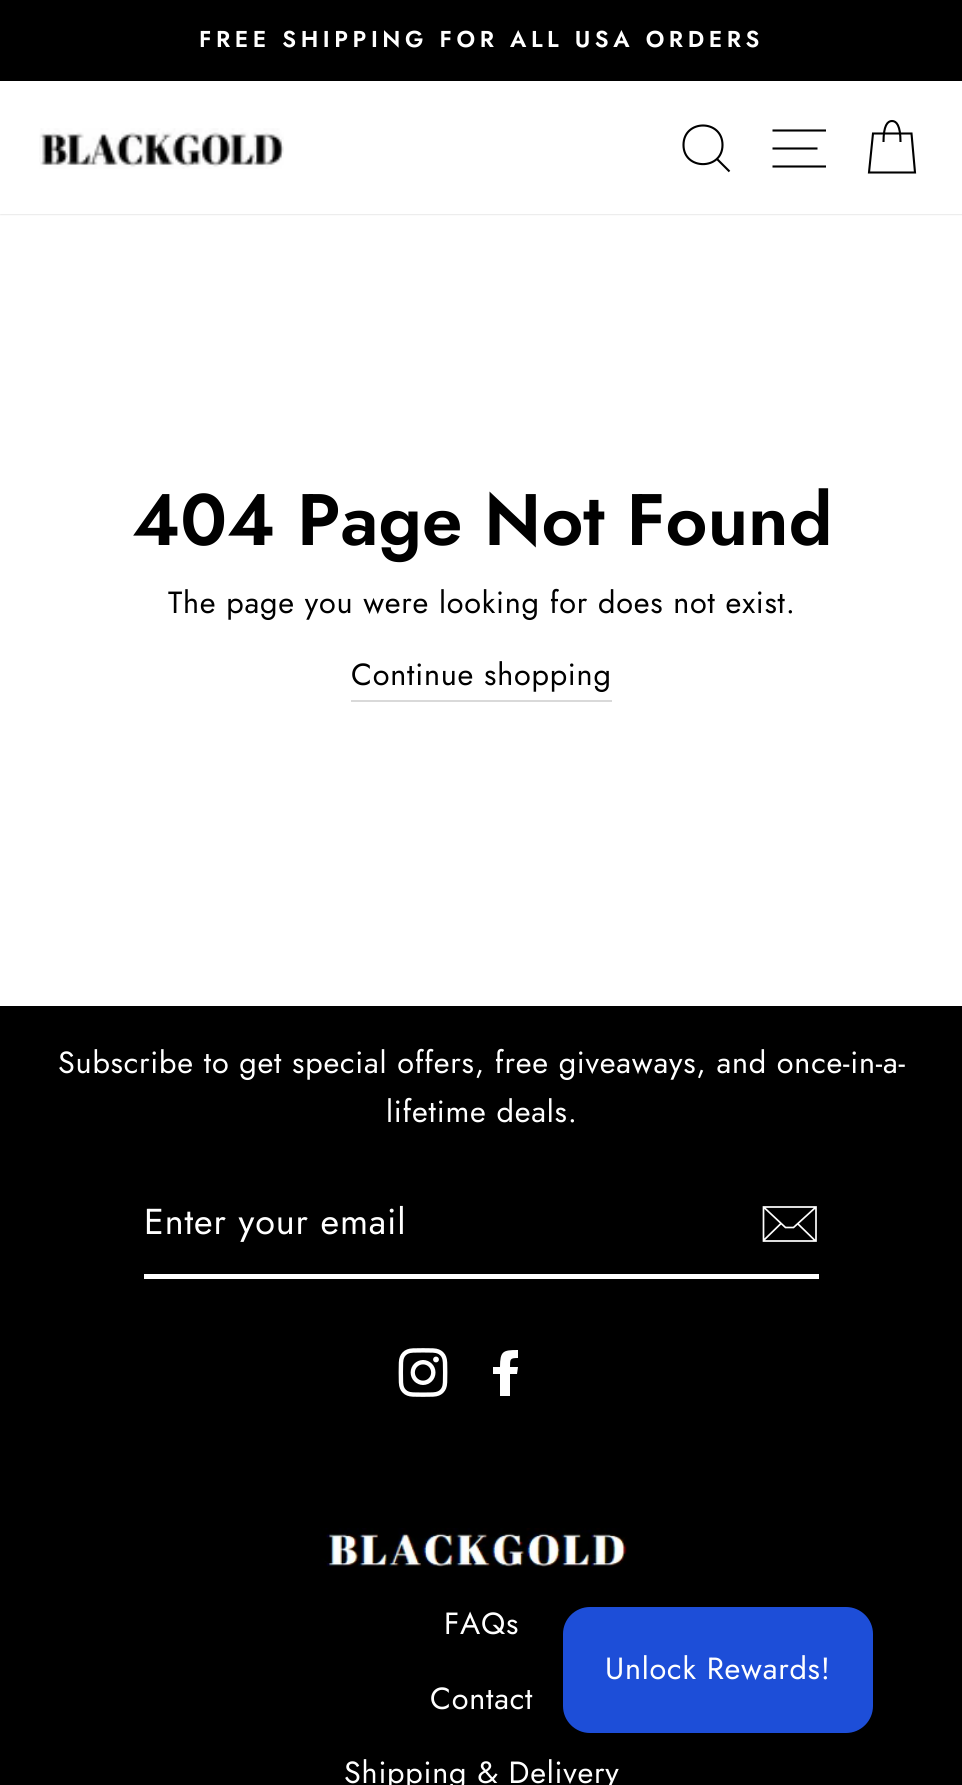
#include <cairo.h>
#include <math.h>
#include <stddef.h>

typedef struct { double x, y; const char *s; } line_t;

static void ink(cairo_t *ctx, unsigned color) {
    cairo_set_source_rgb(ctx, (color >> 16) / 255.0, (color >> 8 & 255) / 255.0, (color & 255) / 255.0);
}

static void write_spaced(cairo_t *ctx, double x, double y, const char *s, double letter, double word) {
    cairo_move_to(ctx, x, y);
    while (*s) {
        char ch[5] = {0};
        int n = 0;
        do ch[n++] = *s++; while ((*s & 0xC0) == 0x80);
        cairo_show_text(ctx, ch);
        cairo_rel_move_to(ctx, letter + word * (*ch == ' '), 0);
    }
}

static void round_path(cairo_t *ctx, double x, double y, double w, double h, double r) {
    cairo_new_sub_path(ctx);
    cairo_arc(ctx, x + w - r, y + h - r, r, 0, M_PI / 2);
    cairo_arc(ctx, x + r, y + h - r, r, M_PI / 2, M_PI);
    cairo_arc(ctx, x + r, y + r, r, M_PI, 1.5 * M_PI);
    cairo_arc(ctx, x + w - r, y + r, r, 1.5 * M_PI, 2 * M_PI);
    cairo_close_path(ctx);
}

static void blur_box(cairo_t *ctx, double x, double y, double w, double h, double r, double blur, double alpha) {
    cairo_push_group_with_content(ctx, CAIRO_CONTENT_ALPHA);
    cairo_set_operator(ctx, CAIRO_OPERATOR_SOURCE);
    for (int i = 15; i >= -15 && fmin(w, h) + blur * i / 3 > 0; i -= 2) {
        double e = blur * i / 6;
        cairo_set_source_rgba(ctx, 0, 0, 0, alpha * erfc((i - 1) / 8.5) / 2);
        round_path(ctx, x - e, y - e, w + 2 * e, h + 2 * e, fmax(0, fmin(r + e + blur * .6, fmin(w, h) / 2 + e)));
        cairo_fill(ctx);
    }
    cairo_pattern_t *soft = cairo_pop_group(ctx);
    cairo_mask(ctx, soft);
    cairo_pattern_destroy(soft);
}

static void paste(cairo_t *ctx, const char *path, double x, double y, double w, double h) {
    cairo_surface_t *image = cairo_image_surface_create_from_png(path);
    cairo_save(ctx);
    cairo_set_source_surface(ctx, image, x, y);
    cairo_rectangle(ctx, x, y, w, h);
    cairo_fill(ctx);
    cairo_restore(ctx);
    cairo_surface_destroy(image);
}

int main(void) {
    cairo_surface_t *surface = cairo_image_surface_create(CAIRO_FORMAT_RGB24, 962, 1785);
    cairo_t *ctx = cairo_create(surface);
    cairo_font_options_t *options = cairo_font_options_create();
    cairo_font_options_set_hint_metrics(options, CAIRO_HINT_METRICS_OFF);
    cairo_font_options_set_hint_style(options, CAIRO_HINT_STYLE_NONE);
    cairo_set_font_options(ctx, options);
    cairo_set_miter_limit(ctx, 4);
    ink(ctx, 0xFFFFFF);
    cairo_paint(ctx);
    ink(ctx, 0x000000);
    cairo_rectangle(ctx, 0, 0, 962, 81);
    cairo_fill(ctx);
    cairo_select_font_face(ctx, "Jost SemiBold", CAIRO_FONT_SLANT_NORMAL, CAIRO_FONT_WEIGHT_NORMAL);
    cairo_set_font_size(ctx, 22.95);
    ink(ctx, 0xFFFFFF);
    write_spaced(ctx, 199, 47, "FREE SHIPPING FOR ALL USA ORDERS", 4.6, 0);
    ink(ctx, 0x000000);
    blur_box(ctx, 0, 81, 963, 133, 0, 1, 0.2);
    ink(ctx, 0xFFFFFF);
    cairo_rectangle(ctx, 0, 81, 962, 133);
    cairo_fill(ctx);
    paste(ctx, "media/1.png", 39, 128, 245, 41);
    cairo_new_path(ctx);
    cairo_move_to(ctx, 722.5, 145);
    cairo_curve_to(ctx, 722.5, 170.5, 683.5, 170.5, 683.5, 145);
    cairo_curve_to(ctx, 683.5, 119, 722.5, 119, 722.5, 145);
    cairo_close_path(ctx);
    cairo_move_to(ctx, 729.5, 171.5);
    cairo_line_to(ctx, 717, 159);
    ink(ctx, 0x000000);
    cairo_set_line_width(ctx, 2.1);
    cairo_stroke(ctx);
    cairo_new_path(ctx);
    cairo_move_to(ctx, 772.5, 130.5);
    cairo_line_to(ctx, 826, 130.5);
    cairo_move_to(ctx, 772.5, 148.5);
    cairo_line_to(ctx, 817.5, 148.5);
    cairo_move_to(ctx, 772.5, 166.5);
    cairo_line_to(ctx, 826, 166.5);
    cairo_stroke(ctx);
    cairo_new_path(ctx);
    cairo_move_to(ctx, 883.5, 142);
    cairo_curve_to(ctx, 883.5, 125.5, 887.5, 121, 892, 121);
    cairo_curve_to(ctx, 896.5, 121, 900.5, 125.5, 900.5, 142);
    cairo_move_to(ctx, 873, 133.5);
    cairo_line_to(ctx, 911.5, 133.5);
    cairo_line_to(ctx, 915, 172.5);
    cairo_line_to(ctx, 869, 172.5);
    cairo_close_path(ctx);
    cairo_stroke(ctx);
    cairo_set_font_size(ctx, 72.75);
    cairo_move_to(ctx, 132, 545);
    cairo_show_text(ctx, "404 Page Not Found");
    cairo_select_font_face(ctx, "Jost", CAIRO_FONT_SLANT_NORMAL, CAIRO_FONT_WEIGHT_NORMAL);
    cairo_set_font_size(ctx, 30.6);
    write_spaced(ctx, 168, 613, "The page you were looking for does not exist.", 0.77, 0);
    ink(ctx, 0xD9D9D9);
    cairo_rectangle(ctx, 351, 700, 261, 2);
    cairo_fill(ctx);
    ink(ctx, 0x000000);
    write_spaced(ctx, 351, 685, "Continue shopping", 0.77, 0);
    cairo_rectangle(ctx, 0, 1006, 962, 779);
    cairo_fill(ctx);
    ink(ctx, 0xFFFFFF);
    write_spaced(ctx, 58, 1073, "Subscribe to get special offers, free giveaways, and once-in-a-", 0.77, 0);
    write_spaced(ctx, 386, 1122, "lifetime deals.", 0.77, 0);
    cairo_rectangle(ctx, 144, 1274, 675, 5);
    cairo_fill(ctx);
    cairo_set_font_size(ctx, 36);
    write_spaced(ctx, 144, 1234, "Enter your email", 0.9, 0);
    cairo_new_path(ctx);
    cairo_move_to(ctx, 816, 1241);
    cairo_line_to(ctx, 763.5, 1241);
    cairo_line_to(ctx, 763.5, 1207);
    cairo_line_to(ctx, 816, 1207);
    cairo_close_path(ctx);
    cairo_move_to(ctx, 763.5, 1207);
    cairo_line_to(ctx, 785.5, 1227.5);
    cairo_line_to(ctx, 793.5, 1227.5);
    cairo_line_to(ctx, 816, 1207);
    cairo_move_to(ctx, 781, 1223.5);
    cairo_line_to(ctx, 764, 1240);
    cairo_move_to(ctx, 815.5, 1241);
    cairo_line_to(ctx, 797.5, 1223.5);
    cairo_set_line_width(ctx, 1.7);
    cairo_stroke(ctx);
    paste(ctx, "media/2.png", 398, 1348, 50, 49);
    cairo_new_path(ctx);
    cairo_move_to(ctx, 510, 1396);
    cairo_line_to(ctx, 510, 1374);
    cairo_line_to(ctx, 517, 1374);
    cairo_line_to(ctx, 518, 1367);
    cairo_line_to(ctx, 510, 1367);
    cairo_curve_to(ctx, 510, 1359, 510, 1358, 518, 1358);
    cairo_line_to(ctx, 518, 1350);
    cairo_curve_to(ctx, 503, 1350, 500, 1351, 500, 1367);
    cairo_line_to(ctx, 493, 1367);
    cairo_line_to(ctx, 493, 1374);
    cairo_line_to(ctx, 500, 1374);
    cairo_line_to(ctx, 500, 1396);
    cairo_close_path(ctx);
    cairo_fill(ctx);
    paste(ctx, "media/3.png", 320, 1528, 307, 39);
    cairo_set_font_size(ctx, 30.6);
    {
        static const line_t items[] = {
            {444, 1634, "FAQs"},
            {430, 1709, "Contact"},
            {344, 1783, "Shipping & Delivery"},
        };
        for (size_t i = 0; i < sizeof items / sizeof *items; i++) {
            write_spaced(ctx, items[i].x, items[i].y, items[i].s, 0.77, 0);
        }
    }
    ink(ctx, 0x1D4ED8);
    round_path(ctx, 563, 1607, 310, 126, 27);
    cairo_fill(ctx);
    ink(ctx, 0xFFFFFF);
    write_spaced(ctx, 605, 1679, "Unlock Rewards!", 0.77, 0);
    cairo_surface_write_to_png(surface, "image.png");
    cairo_font_options_destroy(options);
    cairo_destroy(ctx);
    cairo_surface_destroy(surface);
    return 0;
}
